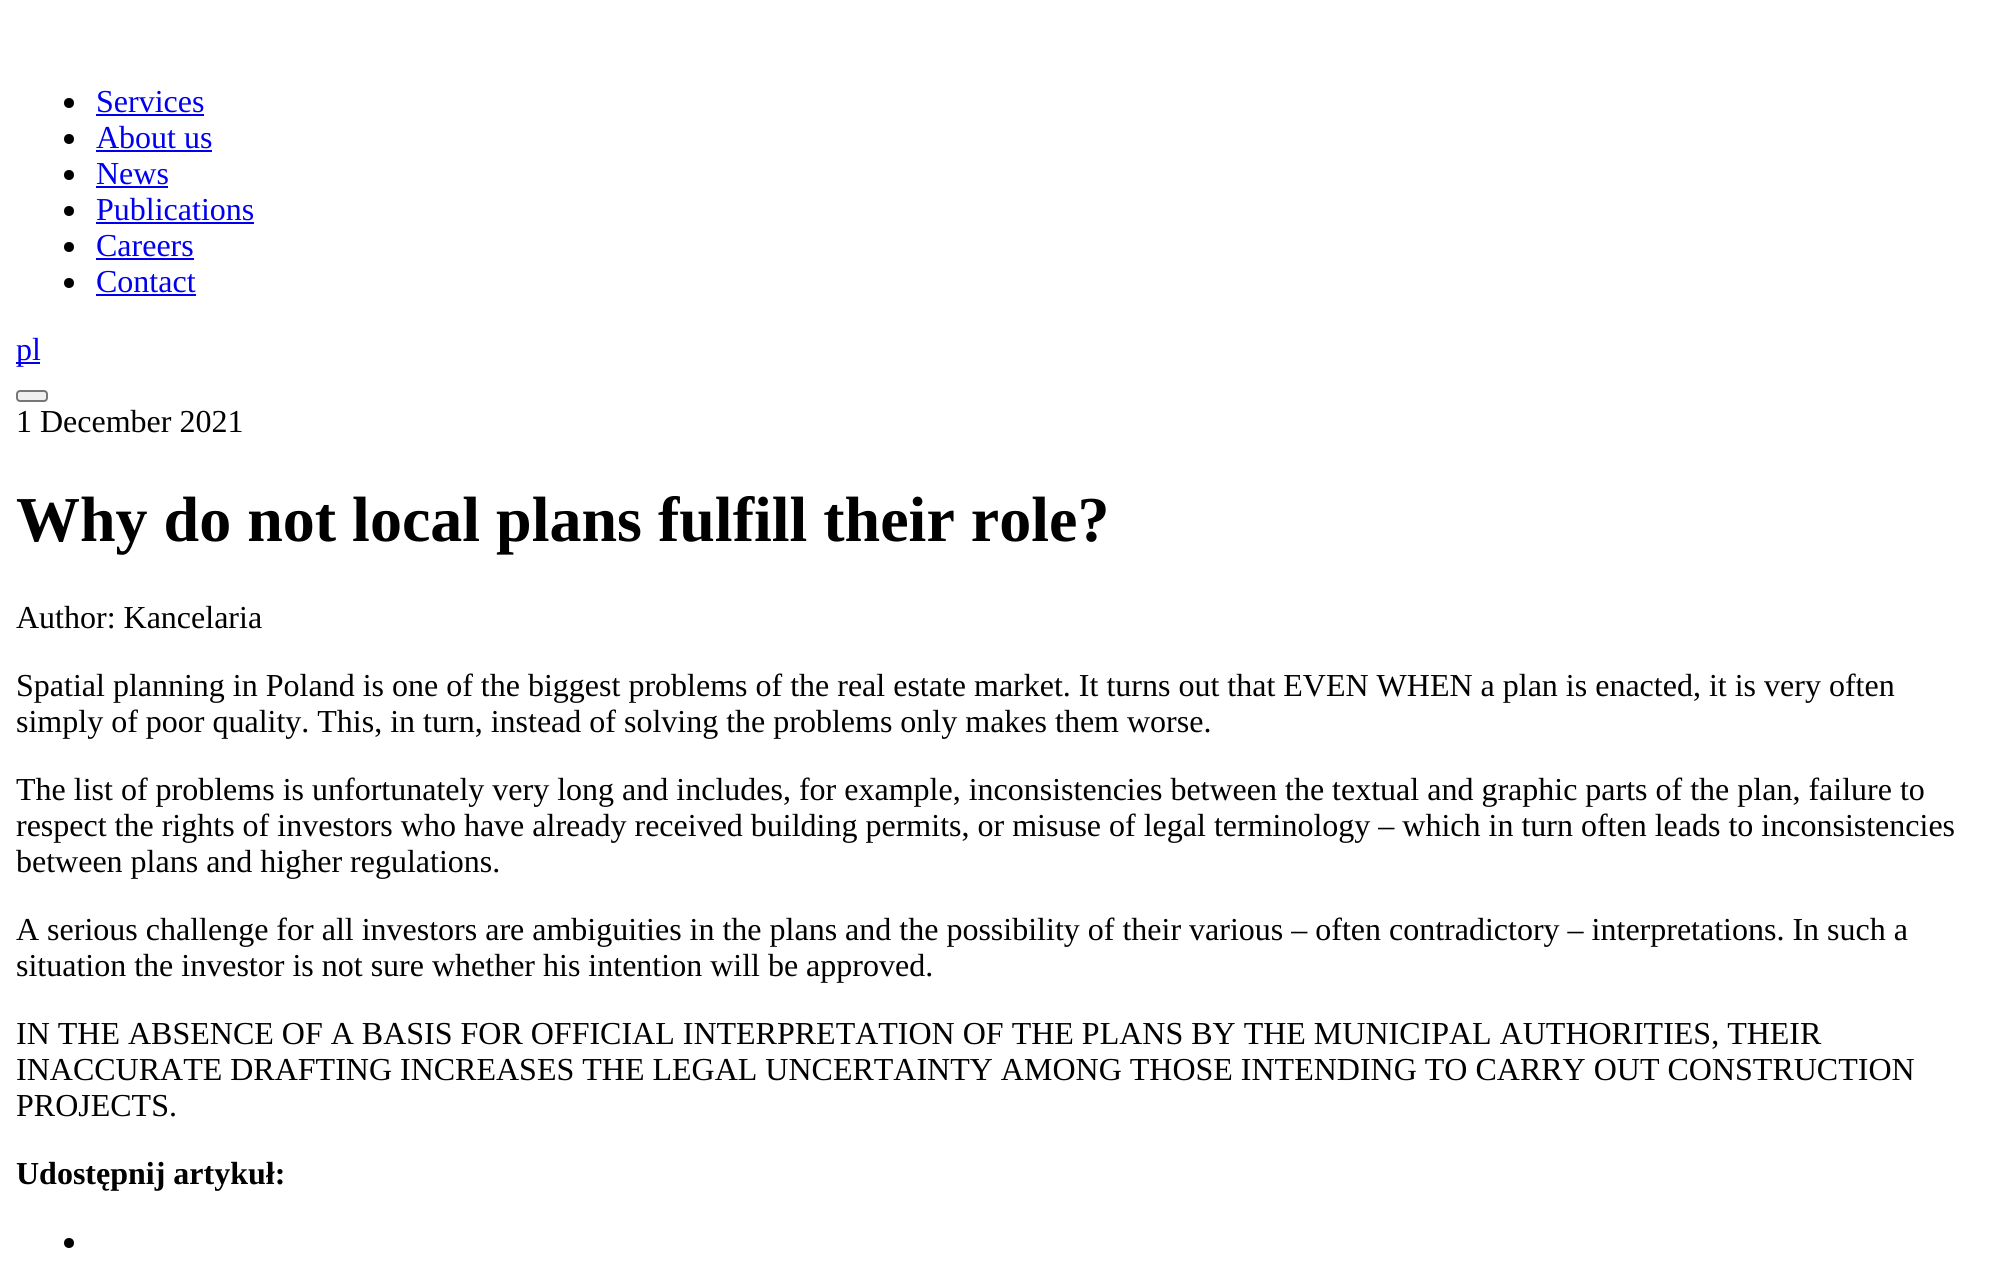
#include <cairo.h>
#include <math.h>
#include <stddef.h>

typedef struct { double x, y; const char *s; } line_t;

static void ink(cairo_t *ctx, unsigned color) {
    cairo_set_source_rgb(ctx, (color >> 16) / 255.0, (color >> 8 & 255) / 255.0, (color & 255) / 255.0);
}

static void round_path(cairo_t *ctx, double x, double y, double w, double h, double r) {
    cairo_new_sub_path(ctx);
    cairo_arc(ctx, x + w - r, y + h - r, r, 0, M_PI / 2);
    cairo_arc(ctx, x + r, y + h - r, r, M_PI / 2, M_PI);
    cairo_arc(ctx, x + r, y + r, r, M_PI, 1.5 * M_PI);
    cairo_arc(ctx, x + w - r, y + r, r, 1.5 * M_PI, 2 * M_PI);
    cairo_close_path(ctx);
}

int main(void) {
    cairo_surface_t *surface = cairo_image_surface_create(CAIRO_FORMAT_RGB24, 1998, 1266);
    cairo_t *ctx = cairo_create(surface);
    cairo_font_options_t *options = cairo_font_options_create();
    cairo_font_options_set_hint_metrics(options, CAIRO_HINT_METRICS_OFF);
    cairo_font_options_set_hint_style(options, CAIRO_HINT_STYLE_NONE);
    cairo_set_font_options(ctx, options);
    cairo_set_miter_limit(ctx, 4);
    ink(ctx, 0xFFFFFF);
    cairo_paint(ctx);
    ink(ctx, 0x000000);
    cairo_arc(ctx, 69, 103, 5, 0, 2 * M_PI);
    cairo_fill(ctx);
    cairo_select_font_face(ctx, "Liberation Serif", CAIRO_FONT_SLANT_NORMAL, CAIRO_FONT_WEIGHT_NORMAL);
    cairo_set_font_size(ctx, 32);
    ink(ctx, 0x0000EE);
    cairo_move_to(ctx, 96, 112);
    cairo_show_text(ctx, "Services");
    cairo_rectangle(ctx, 96, 114, 108, 2);
    cairo_fill(ctx);
    ink(ctx, 0x000000);
    cairo_arc(ctx, 69, 139, 5, 0, 2 * M_PI);
    cairo_fill(ctx);
    ink(ctx, 0x0000EE);
    cairo_move_to(ctx, 96, 148);
    cairo_show_text(ctx, "About us");
    cairo_rectangle(ctx, 96, 150, 116, 2);
    cairo_fill(ctx);
    ink(ctx, 0x000000);
    cairo_arc(ctx, 69, 175, 5, 0, 2 * M_PI);
    cairo_fill(ctx);
    ink(ctx, 0x0000EE);
    cairo_move_to(ctx, 96, 184);
    cairo_show_text(ctx, "News");
    cairo_rectangle(ctx, 96, 186, 72, 2);
    cairo_fill(ctx);
    ink(ctx, 0x000000);
    cairo_arc(ctx, 69, 211, 5, 0, 2 * M_PI);
    cairo_fill(ctx);
    ink(ctx, 0x0000EE);
    cairo_move_to(ctx, 96, 220);
    cairo_show_text(ctx, "Publications");
    cairo_rectangle(ctx, 96, 222, 158, 2);
    cairo_fill(ctx);
    ink(ctx, 0x000000);
    cairo_arc(ctx, 69, 247, 5, 0, 2 * M_PI);
    cairo_fill(ctx);
    ink(ctx, 0x0000EE);
    cairo_move_to(ctx, 96, 256);
    cairo_show_text(ctx, "Careers");
    cairo_rectangle(ctx, 96, 258, 98, 2);
    cairo_fill(ctx);
    ink(ctx, 0x000000);
    cairo_arc(ctx, 69, 283, 5, 0, 2 * M_PI);
    cairo_fill(ctx);
    ink(ctx, 0x0000EE);
    cairo_move_to(ctx, 96, 292);
    cairo_show_text(ctx, "Contact");
    cairo_rectangle(ctx, 96, 294, 100, 2);
    cairo_fill(ctx);
    cairo_rectangle(ctx, 16, 362, 24, 2);
    cairo_fill(ctx);
    cairo_move_to(ctx, 16, 360);
    cairo_show_text(ctx, "pl");
    ink(ctx, 0xEFEFEF);
    round_path(ctx, 17, 391, 30, 10, 3);
    cairo_fill_preserve(ctx);
    ink(ctx, 0x767676);
    cairo_stroke(ctx);
    ink(ctx, 0x000000);
    cairo_move_to(ctx, 16, 432);
    cairo_show_text(ctx, "1 December 2021");
    cairo_select_font_face(ctx, "Liberation Serif", CAIRO_FONT_SLANT_NORMAL, CAIRO_FONT_WEIGHT_BOLD);
    cairo_set_font_size(ctx, 64);
    cairo_move_to(ctx, 16, 541);
    cairo_show_text(ctx, "Why do not local plans fulfill their role?");
    cairo_select_font_face(ctx, "Liberation Serif", CAIRO_FONT_SLANT_NORMAL, CAIRO_FONT_WEIGHT_NORMAL);
    cairo_set_font_size(ctx, 32);
    {
        static const line_t items[] = {
            {16, 628, "Author: Kancelaria"},
            {16, 696, "Spatial planning in Poland is one of the biggest problems of the real estate market. It turns out that EVEN WHEN a plan is enacted, it is very often"},
            {16, 732, "simply of poor quality. This, in turn, instead of solving the problems only makes them worse."},
            {16, 800, "The list of problems is unfortunately very long and includes, for example, inconsistencies between the textual and graphic parts of the plan, failure to"},
            {16, 836, "respect the rights of investors who have already received building permits, or misuse of legal terminology – which in turn often leads to inconsistencies"},
            {16, 872, "between plans and higher regulations."},
            {16, 940, "A serious challenge for all investors are ambiguities in the plans and the possibility of their various – often contradictory – interpretations. In such a"},
            {16, 976, "situation the investor is not sure whether his intention will be approved."},
            {16, 1044, "IN THE ABSENCE OF A BASIS FOR OFFICIAL INTERPRETATION OF THE PLANS BY THE MUNICIPAL AUTHORITIES, THEIR"},
            {16, 1080, "INACCURATE DRAFTING INCREASES THE LEGAL UNCERTAINTY AMONG THOSE INTENDING TO CARRY OUT CONSTRUCTION"},
            {16, 1116, "PROJECTS."},
        };
        for (size_t i = 0; i < sizeof items / sizeof *items; i++) {
            cairo_move_to(ctx, items[i].x, items[i].y);
            cairo_show_text(ctx, items[i].s);
        }
    }
    cairo_select_font_face(ctx, "Liberation Serif", CAIRO_FONT_SLANT_NORMAL, CAIRO_FONT_WEIGHT_BOLD);
    cairo_move_to(ctx, 16, 1184);
    cairo_show_text(ctx, "Udostępnij artykuł:");
    cairo_new_path(ctx);
    cairo_arc(ctx, 69, 1243, 5, 0, 2 * M_PI);
    cairo_fill(ctx);
    cairo_surface_write_to_png(surface, "image.png");
    cairo_font_options_destroy(options);
    cairo_destroy(ctx);
    cairo_surface_destroy(surface);
    return 0;
}
